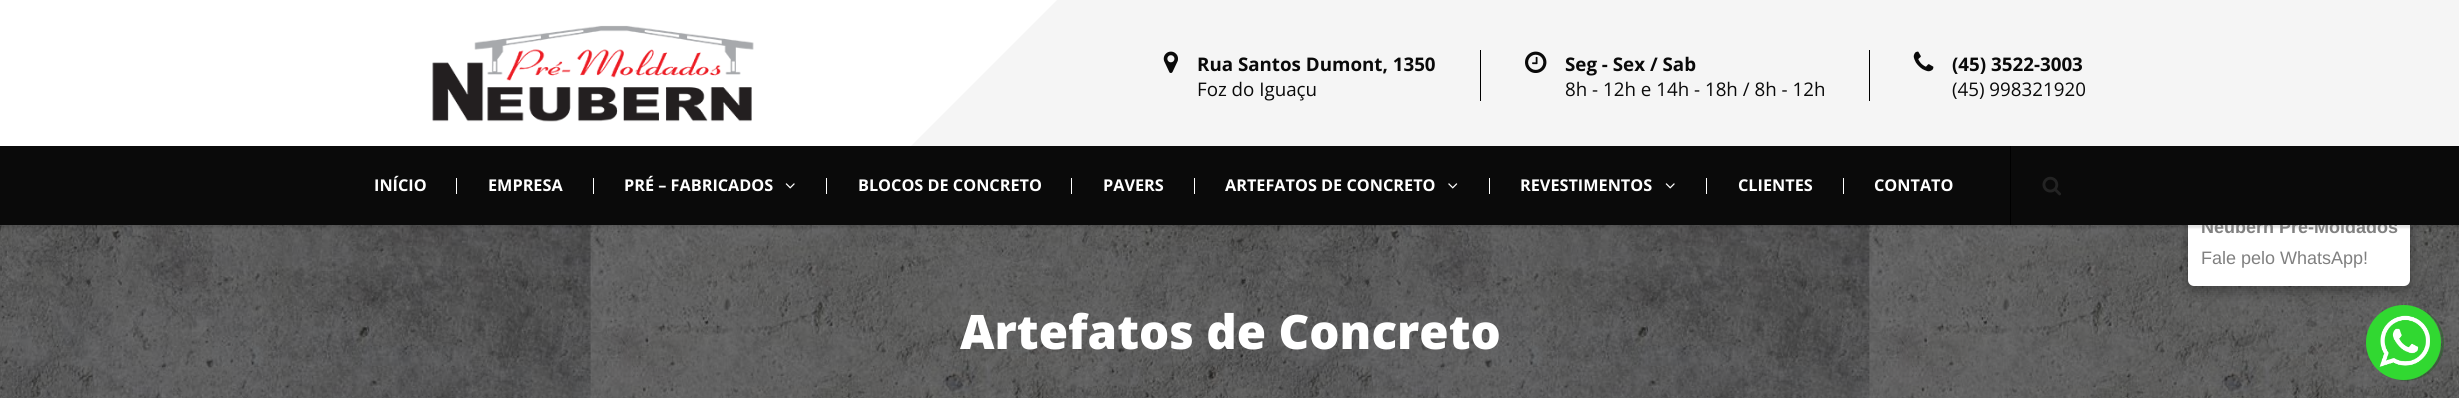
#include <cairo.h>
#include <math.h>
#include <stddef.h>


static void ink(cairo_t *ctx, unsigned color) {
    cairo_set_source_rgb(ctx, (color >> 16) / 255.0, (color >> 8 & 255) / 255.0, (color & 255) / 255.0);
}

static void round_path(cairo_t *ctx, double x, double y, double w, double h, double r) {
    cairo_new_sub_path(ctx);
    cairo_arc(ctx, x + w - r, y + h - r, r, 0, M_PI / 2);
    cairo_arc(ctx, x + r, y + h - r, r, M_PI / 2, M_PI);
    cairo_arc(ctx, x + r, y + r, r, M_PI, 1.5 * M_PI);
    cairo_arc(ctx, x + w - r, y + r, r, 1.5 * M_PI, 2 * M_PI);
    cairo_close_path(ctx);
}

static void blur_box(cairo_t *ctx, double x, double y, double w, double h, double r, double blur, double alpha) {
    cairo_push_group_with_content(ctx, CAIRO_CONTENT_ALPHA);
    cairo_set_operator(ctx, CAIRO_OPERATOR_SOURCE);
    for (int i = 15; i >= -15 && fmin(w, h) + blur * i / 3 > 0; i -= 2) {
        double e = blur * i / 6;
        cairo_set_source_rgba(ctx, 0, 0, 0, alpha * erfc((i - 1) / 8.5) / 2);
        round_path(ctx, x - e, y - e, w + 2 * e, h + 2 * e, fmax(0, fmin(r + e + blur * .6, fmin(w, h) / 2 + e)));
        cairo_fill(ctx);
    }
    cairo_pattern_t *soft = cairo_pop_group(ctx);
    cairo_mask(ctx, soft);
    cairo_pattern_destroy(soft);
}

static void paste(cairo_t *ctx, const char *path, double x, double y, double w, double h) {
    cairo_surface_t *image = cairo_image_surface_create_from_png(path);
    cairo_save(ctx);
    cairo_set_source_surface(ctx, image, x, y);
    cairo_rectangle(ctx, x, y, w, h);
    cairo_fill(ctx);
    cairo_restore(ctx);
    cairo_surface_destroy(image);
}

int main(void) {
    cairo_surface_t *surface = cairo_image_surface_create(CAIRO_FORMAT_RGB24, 2459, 398);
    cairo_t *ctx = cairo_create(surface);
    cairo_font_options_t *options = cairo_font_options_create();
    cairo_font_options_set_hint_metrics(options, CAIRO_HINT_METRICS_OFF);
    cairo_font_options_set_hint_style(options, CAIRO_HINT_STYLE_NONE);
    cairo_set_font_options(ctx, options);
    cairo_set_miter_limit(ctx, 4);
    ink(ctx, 0xFFFFFF);
    cairo_paint(ctx);
    paste(ctx, "media/9.png", 0, 225, 2459, 173);
    ink(ctx, 0x000000);
    blur_box(ctx, 2188, 200, 222, 90, 6, 6, 0.34);
    ink(ctx, 0xFFFFFF);
    round_path(ctx, 2188, 196, 222, 90, 6);
    cairo_fill(ctx);
    ink(ctx, 0x000000);
    blur_box(ctx, 0, 149, 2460, 79, 0, 1, 0.12);
    ink(ctx, 0xF5F5F5);
    cairo_new_path(ctx);
    cairo_move_to(ctx, 1057, 0);
    cairo_line_to(ctx, 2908, 0);
    cairo_line_to(ctx, 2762, 146);
    cairo_line_to(ctx, 911, 146);
    cairo_close_path(ctx);
    cairo_fill(ctx);
    paste(ctx, "media/1.png", 432, 25, 322, 97);
    paste(ctx, "media/2.png", 1163, 51, 15, 22);
    cairo_select_font_face(ctx, "Open Sans", CAIRO_FONT_SLANT_NORMAL, CAIRO_FONT_WEIGHT_BOLD);
    cairo_set_font_size(ctx, 18.75);
    ink(ctx, 0x0A0A0A);
    cairo_move_to(ctx, 1197, 71);
    cairo_show_text(ctx, "Rua Santos Dumont, 1350");
    cairo_select_font_face(ctx, "Open Sans", CAIRO_FONT_SLANT_NORMAL, CAIRO_FONT_WEIGHT_NORMAL);
    cairo_move_to(ctx, 1197, 96);
    cairo_show_text(ctx, "Foz do Iguaçu");
    ink(ctx, 0x000000);
    cairo_rectangle(ctx, 1480, 50, 1, 51);
    cairo_fill(ctx);
    paste(ctx, "media/3.png", 1525, 51, 22, 22);
    cairo_select_font_face(ctx, "Open Sans", CAIRO_FONT_SLANT_NORMAL, CAIRO_FONT_WEIGHT_BOLD);
    ink(ctx, 0x0A0A0A);
    cairo_move_to(ctx, 1565, 71);
    cairo_show_text(ctx, "Seg - Sex / Sab");
    cairo_select_font_face(ctx, "Open Sans", CAIRO_FONT_SLANT_NORMAL, CAIRO_FONT_WEIGHT_NORMAL);
    cairo_move_to(ctx, 1565, 96);
    cairo_show_text(ctx, "8h - 12h e 14h - 18h / 8h - 12h");
    ink(ctx, 0x000000);
    cairo_rectangle(ctx, 1869, 50, 1, 51);
    cairo_fill(ctx);
    paste(ctx, "media/4.png", 1913, 51, 21, 21);
    cairo_select_font_face(ctx, "Open Sans", CAIRO_FONT_SLANT_NORMAL, CAIRO_FONT_WEIGHT_BOLD);
    ink(ctx, 0x0A0A0A);
    cairo_move_to(ctx, 1952, 71);
    cairo_show_text(ctx, "(45) 3522-3003");
    cairo_select_font_face(ctx, "Open Sans", CAIRO_FONT_SLANT_NORMAL, CAIRO_FONT_WEIGHT_NORMAL);
    cairo_move_to(ctx, 1952, 96);
    cairo_show_text(ctx, "(45) 998321920");
    cairo_select_font_face(ctx, "Liberation Sans", CAIRO_FONT_SLANT_NORMAL, CAIRO_FONT_WEIGHT_BOLD);
    cairo_set_font_size(ctx, 18);
    ink(ctx, 0x808080);
    cairo_move_to(ctx, 2201, 233);
    cairo_show_text(ctx, "Neubern Pré-Moldados");
    ink(ctx, 0x0A0A0A);
    cairo_rectangle(ctx, 0, 146, 2459, 79);
    cairo_fill(ctx);
    cairo_select_font_face(ctx, "Open Sans", CAIRO_FONT_SLANT_NORMAL, CAIRO_FONT_WEIGHT_BOLD);
    cairo_set_font_size(ctx, 16.25);
    ink(ctx, 0xFFFFFF);
    cairo_move_to(ctx, 374, 191);
    cairo_show_text(ctx, "INÍCIO");
    cairo_rectangle(ctx, 456, 178, 1, 16);
    cairo_fill(ctx);
    cairo_move_to(ctx, 488, 191);
    cairo_show_text(ctx, "EMPRESA");
    cairo_rectangle(ctx, 593, 178, 1, 16);
    cairo_fill(ctx);
    cairo_move_to(ctx, 624, 191);
    cairo_show_text(ctx, "PRÉ – FABRICADOS");
    paste(ctx, "media/5.png", 785, 183, 10, 6);
    cairo_rectangle(ctx, 826, 178, 1, 16);
    cairo_fill(ctx);
    cairo_move_to(ctx, 858, 191);
    cairo_show_text(ctx, "BLOCOS DE CONCRETO");
    cairo_rectangle(ctx, 1071, 178, 1, 16);
    cairo_fill(ctx);
    cairo_move_to(ctx, 1103, 191);
    cairo_show_text(ctx, "PAVERS");
    cairo_rectangle(ctx, 1194, 178, 1, 16);
    cairo_fill(ctx);
    cairo_move_to(ctx, 1225, 191);
    cairo_show_text(ctx, "ARTEFATOS DE CONCRETO");
    paste(ctx, "media/6.png", 1448, 183, 10, 6);
    cairo_rectangle(ctx, 1489, 178, 1, 16);
    cairo_fill(ctx);
    cairo_move_to(ctx, 1520, 191);
    cairo_show_text(ctx, "REVESTIMENTOS");
    paste(ctx, "media/5.png", 1665, 183, 10, 6);
    cairo_rectangle(ctx, 1706, 178, 1, 16);
    cairo_fill(ctx);
    cairo_move_to(ctx, 1738, 191);
    cairo_show_text(ctx, "CLIENTES");
    cairo_rectangle(ctx, 1843, 178, 1, 16);
    cairo_fill(ctx);
    cairo_move_to(ctx, 1874, 191);
    cairo_show_text(ctx, "CONTATO");
    ink(ctx, 0x000000);
    cairo_rectangle(ctx, 2010, 146, 1, 79);
    cairo_fill(ctx);
    paste(ctx, "media/7.png", 2042, 176, 19, 20);
    cairo_select_font_face(ctx, "Liberation Sans", CAIRO_FONT_SLANT_NORMAL, CAIRO_FONT_WEIGHT_NORMAL);
    cairo_set_font_size(ctx, 18);
    ink(ctx, 0x808080);
    cairo_move_to(ctx, 2201, 264);
    cairo_show_text(ctx, "Fale pelo WhatsApp!");
    cairo_set_source_rgba(ctx, 0.051, 0.388, 0.051, 0.39);
    cairo_new_path(ctx);
    cairo_move_to(ctx, 2392, 378);
    cairo_curve_to(ctx, 2426, 392, 2459, 352, 2437, 321);
    cairo_curve_to(ctx, 2432, 315, 2425, 310, 2418, 308);
    cairo_curve_to(ctx, 2425, 311, 2431, 315, 2435, 321);
    cairo_curve_to(ctx, 2455, 351, 2426, 389, 2392, 378);
    cairo_close_path(ctx);
    cairo_fill(ctx);
    ink(ctx, 0x31D831);
    cairo_arc(ctx, 2403.5, 342.5, 37.5, 0, 2 * M_PI);
    cairo_fill(ctx);
    paste(ctx, "media/8.png", 2379, 315, 51, 52);
    cairo_select_font_face(ctx, "Open Sans ExtraBold", CAIRO_FONT_SLANT_NORMAL, CAIRO_FONT_WEIGHT_NORMAL);
    cairo_set_font_size(ctx, 47.5);
    ink(ctx, 0xFFFFFF);
    cairo_move_to(ctx, 960, 349);
    cairo_show_text(ctx, "Artefatos de Concreto");
    cairo_surface_write_to_png(surface, "image.png");
    cairo_font_options_destroy(options);
    cairo_destroy(ctx);
    cairo_surface_destroy(surface);
    return 0;
}
